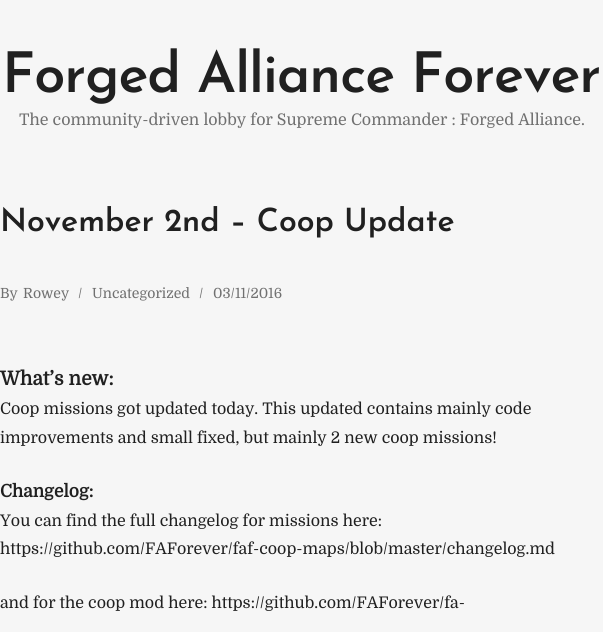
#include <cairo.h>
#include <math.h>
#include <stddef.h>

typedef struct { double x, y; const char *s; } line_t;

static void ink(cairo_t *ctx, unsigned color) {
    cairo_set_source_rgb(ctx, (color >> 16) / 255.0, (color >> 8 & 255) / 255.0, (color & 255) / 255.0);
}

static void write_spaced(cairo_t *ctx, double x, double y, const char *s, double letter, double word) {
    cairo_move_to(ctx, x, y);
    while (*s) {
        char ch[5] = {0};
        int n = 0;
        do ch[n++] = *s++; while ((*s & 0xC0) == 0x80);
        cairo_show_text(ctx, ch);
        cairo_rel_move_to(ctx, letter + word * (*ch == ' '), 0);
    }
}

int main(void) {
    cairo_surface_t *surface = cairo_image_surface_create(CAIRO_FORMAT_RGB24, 603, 632);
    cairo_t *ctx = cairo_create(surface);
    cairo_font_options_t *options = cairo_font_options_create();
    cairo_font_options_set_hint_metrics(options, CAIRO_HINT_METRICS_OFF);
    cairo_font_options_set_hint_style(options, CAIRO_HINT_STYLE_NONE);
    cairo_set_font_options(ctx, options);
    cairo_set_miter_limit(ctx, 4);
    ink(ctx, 0xF6F6F6);
    cairo_paint(ctx);
    cairo_select_font_face(ctx, "Josefin Sans Thin", CAIRO_FONT_SLANT_NORMAL, CAIRO_FONT_WEIGHT_NORMAL);
    cairo_set_font_size(ctx, 56);
    ink(ctx, 0x202020);
    write_spaced(ctx, 2, 92, "Forged Alliance Forever", -1, 0);
    cairo_select_font_face(ctx, "Domine", CAIRO_FONT_SLANT_NORMAL, CAIRO_FONT_WEIGHT_NORMAL);
    cairo_set_font_size(ctx, 16);
    ink(ctx, 0x707070);
    cairo_move_to(ctx, 19, 125);
    cairo_show_text(ctx, "The community-driven lobby for Supreme Commander : Forged Alliance.");
    cairo_select_font_face(ctx, "Josefin Sans Thin", CAIRO_FONT_SLANT_NORMAL, CAIRO_FONT_WEIGHT_NORMAL);
    cairo_set_font_size(ctx, 32);
    ink(ctx, 0x202020);
    cairo_move_to(ctx, 0, 231);
    cairo_show_text(ctx, "November 2nd – Coop Update");
    cairo_select_font_face(ctx, "Domine", CAIRO_FONT_SLANT_NORMAL, CAIRO_FONT_WEIGHT_NORMAL);
    cairo_set_font_size(ctx, 14);
    ink(ctx, 0x707070);
    {
        static const line_t items[] = {
            {0, 298, "By"},
            {23, 298, "Rowey"},
            {78, 298, "/"},
            {92, 298, "Uncategorized"},
            {199, 298, "/"},
            {213, 298, "03/11/2016"},
        };
        for (size_t i = 0; i < sizeof items / sizeof *items; i++) {
            cairo_move_to(ctx, items[i].x, items[i].y);
            cairo_show_text(ctx, items[i].s);
        }
    }
    cairo_select_font_face(ctx, "Domine", CAIRO_FONT_SLANT_NORMAL, CAIRO_FONT_WEIGHT_BOLD);
    cairo_set_font_size(ctx, 19.25);
    ink(ctx, 0x202020);
    cairo_move_to(ctx, 0, 385);
    cairo_show_text(ctx, "What’s new:");
    cairo_select_font_face(ctx, "Domine", CAIRO_FONT_SLANT_NORMAL, CAIRO_FONT_WEIGHT_NORMAL);
    cairo_set_font_size(ctx, 16);
    cairo_move_to(ctx, 0, 414);
    cairo_show_text(ctx, "Coop missions got updated today. This updated contains mainly code");
    cairo_move_to(ctx, 0, 443);
    cairo_show_text(ctx, "improvements and small fixed, but mainly 2 new coop missions!");
    cairo_select_font_face(ctx, "Domine", CAIRO_FONT_SLANT_NORMAL, CAIRO_FONT_WEIGHT_BOLD);
    cairo_set_font_size(ctx, 17.5);
    cairo_move_to(ctx, 0, 497);
    cairo_show_text(ctx, "Changelog:");
    cairo_select_font_face(ctx, "Domine", CAIRO_FONT_SLANT_NORMAL, CAIRO_FONT_WEIGHT_NORMAL);
    cairo_set_font_size(ctx, 16);
    {
        static const line_t items[] = {
            {0, 526, "You can find the full changelog for missions here:"},
            {0, 554, "https://github.com/FAForever/faf-coop-maps/blob/master/changelog.md"},
            {0, 608, "and for the coop mod here: https://github.com/FAForever/fa-"},
        };
        for (size_t i = 0; i < sizeof items / sizeof *items; i++) {
            cairo_move_to(ctx, items[i].x, items[i].y);
            cairo_show_text(ctx, items[i].s);
        }
    }
    cairo_surface_write_to_png(surface, "image.png");
    cairo_font_options_destroy(options);
    cairo_destroy(ctx);
    cairo_surface_destroy(surface);
    return 0;
}
